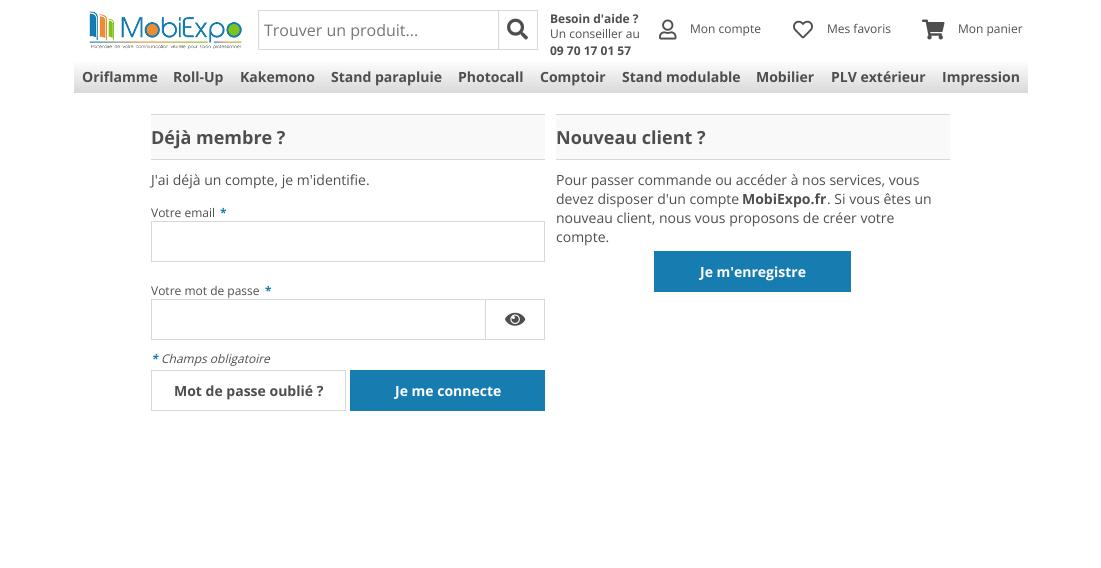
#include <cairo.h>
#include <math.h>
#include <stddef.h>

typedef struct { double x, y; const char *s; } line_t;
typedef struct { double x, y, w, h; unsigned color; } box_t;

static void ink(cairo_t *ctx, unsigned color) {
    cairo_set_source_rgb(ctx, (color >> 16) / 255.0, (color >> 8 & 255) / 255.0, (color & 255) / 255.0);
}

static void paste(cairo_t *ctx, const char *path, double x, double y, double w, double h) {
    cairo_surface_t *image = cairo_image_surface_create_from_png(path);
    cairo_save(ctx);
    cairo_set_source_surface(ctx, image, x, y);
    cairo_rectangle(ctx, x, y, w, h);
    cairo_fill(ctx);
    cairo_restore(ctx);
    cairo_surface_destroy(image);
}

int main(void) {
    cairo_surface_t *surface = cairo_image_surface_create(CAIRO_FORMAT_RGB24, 1101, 568);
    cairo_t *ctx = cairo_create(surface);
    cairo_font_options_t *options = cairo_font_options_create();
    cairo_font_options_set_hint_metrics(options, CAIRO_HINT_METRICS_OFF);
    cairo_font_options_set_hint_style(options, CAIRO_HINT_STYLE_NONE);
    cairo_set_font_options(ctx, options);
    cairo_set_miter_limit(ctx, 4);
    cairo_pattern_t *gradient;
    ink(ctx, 0xFFFFFF);
    cairo_paint(ctx);
    paste(ctx, "media/1.png", 89, 11, 153, 38);
    {
        static const box_t items[] = {
            {258, 10, 240, 1, 0xD8D8D8},
            {258, 49, 240, 1, 0xD8D8D8},
            {258, 10, 1, 40, 0xD8D8D8},
        };
        for (size_t i = 0; i < sizeof items / sizeof *items; i++) {
            ink(ctx, items[i].color);
            cairo_rectangle(ctx, items[i].x, items[i].y, items[i].w, items[i].h);
            cairo_fill(ctx);
        }
    }
    cairo_select_font_face(ctx, "Open Sans", CAIRO_FONT_SLANT_NORMAL, CAIRO_FONT_WEIGHT_NORMAL);
    cairo_set_font_size(ctx, 16);
    ink(ctx, 0x757575);
    cairo_move_to(ctx, 264, 36);
    cairo_show_text(ctx, "Trouver un produit...");
    cairo_rectangle(ctx, 498.5, 10.5, 39, 39);
    ink(ctx, 0xD8D8D8);
    cairo_set_line_width(ctx, 1);
    cairo_stroke(ctx);
    paste(ctx, "media/2.png", 507, 18, 21, 22);
    cairo_select_font_face(ctx, "Open Sans", CAIRO_FONT_SLANT_NORMAL, CAIRO_FONT_WEIGHT_BOLD);
    cairo_set_font_size(ctx, 12);
    ink(ctx, 0x4E4E4E);
    cairo_move_to(ctx, 550, 23);
    cairo_show_text(ctx, "Besoin d'aide ?");
    cairo_select_font_face(ctx, "Open Sans", CAIRO_FONT_SLANT_NORMAL, CAIRO_FONT_WEIGHT_NORMAL);
    cairo_move_to(ctx, 550, 38);
    cairo_show_text(ctx, "Un conseiller au");
    cairo_select_font_face(ctx, "Open Sans", CAIRO_FONT_SLANT_NORMAL, CAIRO_FONT_WEIGHT_BOLD);
    cairo_move_to(ctx, 550, 55);
    cairo_show_text(ctx, "09 70 17 01 57");
    paste(ctx, "media/3.png", 659, 19, 18, 21);
    cairo_select_font_face(ctx, "Open Sans", CAIRO_FONT_SLANT_NORMAL, CAIRO_FONT_WEIGHT_NORMAL);
    cairo_move_to(ctx, 690, 33);
    cairo_show_text(ctx, "Mon compte");
    paste(ctx, "media/4.png", 793, 20, 20, 19);
    cairo_move_to(ctx, 827, 33);
    cairo_show_text(ctx, "Mes favoris");
    paste(ctx, "media/5.png", 922, 19, 23, 21);
    cairo_move_to(ctx, 958, 33);
    cairo_show_text(ctx, "Mon panier");
    gradient = cairo_pattern_create_linear(551, 60, 551, 93);
    cairo_pattern_add_color_stop_rgba(gradient, 0, 1, 1, 1, 1);
    cairo_pattern_add_color_stop_rgba(gradient, 1, 0.847, 0.847, 0.847, 1);
    cairo_set_source(ctx, gradient);
    cairo_pattern_destroy(gradient);
    cairo_rectangle(ctx, 74, 62, 954, 31);
    cairo_fill(ctx);
    cairo_select_font_face(ctx, "Open Sans", CAIRO_FONT_SLANT_NORMAL, CAIRO_FONT_WEIGHT_BOLD);
    cairo_set_font_size(ctx, 14);
    ink(ctx, 0x4E4E4E);
    {
        static const line_t items[] = {
            {82, 82, "Oriflamme"},
            {173, 82, "Roll-Up"},
            {240, 82, "Kakemono"},
            {331, 82, "Stand parapluie"},
            {458, 82, "Photocall"},
            {540, 82, "Comptoir"},
            {622, 82, "Stand modulable"},
            {756, 82, "Mobilier"},
            {831, 82, "PLV extérieur"},
            {942, 82, "Impression"},
        };
        for (size_t i = 0; i < sizeof items / sizeof *items; i++) {
            cairo_move_to(ctx, items[i].x, items[i].y);
            cairo_show_text(ctx, items[i].s);
        }
    }
    {
        static const box_t items[] = {
            {151, 115, 394, 44, 0xF9F9F9},
            {151, 114, 394, 1, 0xD8D8D8},
            {151, 159, 394, 1, 0xD8D8D8},
        };
        for (size_t i = 0; i < sizeof items / sizeof *items; i++) {
            ink(ctx, items[i].color);
            cairo_rectangle(ctx, items[i].x, items[i].y, items[i].w, items[i].h);
            cairo_fill(ctx);
        }
    }
    cairo_set_font_size(ctx, 18);
    ink(ctx, 0x4E4E4E);
    cairo_move_to(ctx, 151, 144);
    cairo_show_text(ctx, "Déjà membre ?");
    cairo_select_font_face(ctx, "Open Sans", CAIRO_FONT_SLANT_NORMAL, CAIRO_FONT_WEIGHT_NORMAL);
    cairo_set_font_size(ctx, 14);
    cairo_move_to(ctx, 151, 185);
    cairo_show_text(ctx, "J'ai déjà un compte, je m'identifie.");
    cairo_set_font_size(ctx, 12);
    cairo_move_to(ctx, 151, 217);
    cairo_show_text(ctx, "Votre email");
    cairo_select_font_face(ctx, "Open Sans", CAIRO_FONT_SLANT_NORMAL, CAIRO_FONT_WEIGHT_BOLD);
    ink(ctx, 0x177DB1);
    cairo_move_to(ctx, 220, 217);
    cairo_show_text(ctx, "*");
    cairo_rectangle(ctx, 151.5, 221.5, 393, 40);
    ink(ctx, 0xD8D8D8);
    cairo_stroke(ctx);
    cairo_select_font_face(ctx, "Open Sans", CAIRO_FONT_SLANT_NORMAL, CAIRO_FONT_WEIGHT_NORMAL);
    ink(ctx, 0x4E4E4E);
    cairo_move_to(ctx, 151, 295);
    cairo_show_text(ctx, "Votre mot de passe");
    cairo_select_font_face(ctx, "Open Sans", CAIRO_FONT_SLANT_NORMAL, CAIRO_FONT_WEIGHT_BOLD);
    ink(ctx, 0x177DB1);
    cairo_move_to(ctx, 265, 295);
    cairo_show_text(ctx, "*");
    cairo_rectangle(ctx, 151.5, 299.5, 393, 40);
    ink(ctx, 0xD8D8D8);
    cairo_stroke(ctx);
    cairo_rectangle(ctx, 485.5, 299.5, 59, 40);
    cairo_stroke(ctx);
    paste(ctx, "media/6.png", 505, 312, 21, 14);
    cairo_select_font_face(ctx, "Open Sans", CAIRO_FONT_SLANT_ITALIC, CAIRO_FONT_WEIGHT_BOLD);
    ink(ctx, 0x177DB1);
    cairo_move_to(ctx, 151, 363);
    cairo_show_text(ctx, "*");
    cairo_select_font_face(ctx, "Open Sans", CAIRO_FONT_SLANT_ITALIC, CAIRO_FONT_WEIGHT_NORMAL);
    ink(ctx, 0x4E4E4E);
    cairo_move_to(ctx, 161, 363);
    cairo_show_text(ctx, "Champs obligatoire");
    cairo_rectangle(ctx, 151.5, 370.5, 194, 40);
    ink(ctx, 0xD8D8D8);
    cairo_stroke(ctx);
    cairo_select_font_face(ctx, "Open Sans", CAIRO_FONT_SLANT_NORMAL, CAIRO_FONT_WEIGHT_BOLD);
    cairo_set_font_size(ctx, 14);
    ink(ctx, 0x4E4E4E);
    cairo_move_to(ctx, 174, 396);
    cairo_show_text(ctx, "Mot de passe oublié ?");
    ink(ctx, 0x177DB1);
    cairo_rectangle(ctx, 350, 370, 195, 41);
    cairo_fill(ctx);
    ink(ctx, 0xFFFFFF);
    cairo_move_to(ctx, 395, 396);
    cairo_show_text(ctx, "Je me connecte");
    {
        static const box_t items[] = {
            {556, 115, 394, 44, 0xF9F9F9},
            {556, 114, 394, 1, 0xD8D8D8},
            {556, 159, 394, 1, 0xD8D8D8},
        };
        for (size_t i = 0; i < sizeof items / sizeof *items; i++) {
            ink(ctx, items[i].color);
            cairo_rectangle(ctx, items[i].x, items[i].y, items[i].w, items[i].h);
            cairo_fill(ctx);
        }
    }
    cairo_set_font_size(ctx, 18);
    ink(ctx, 0x4E4E4E);
    cairo_move_to(ctx, 556, 144);
    cairo_show_text(ctx, "Nouveau client ?");
    cairo_select_font_face(ctx, "Open Sans", CAIRO_FONT_SLANT_NORMAL, CAIRO_FONT_WEIGHT_NORMAL);
    cairo_set_font_size(ctx, 14);
    cairo_move_to(ctx, 556, 185);
    cairo_show_text(ctx, "Pour passer commande ou accéder à nos services, vous");
    cairo_move_to(ctx, 556, 204);
    cairo_show_text(ctx, "devez disposer d'un compte");
    cairo_select_font_face(ctx, "Open Sans", CAIRO_FONT_SLANT_NORMAL, CAIRO_FONT_WEIGHT_BOLD);
    cairo_move_to(ctx, 742, 204);
    cairo_show_text(ctx, "MobiExpo.fr");
    cairo_select_font_face(ctx, "Open Sans", CAIRO_FONT_SLANT_NORMAL, CAIRO_FONT_WEIGHT_NORMAL);
    {
        static const line_t items[] = {
            {827, 204, ". Si vous êtes un"},
            {556, 223, "nouveau client, nous vous proposons de créer votre"},
            {556, 242, "compte."},
        };
        for (size_t i = 0; i < sizeof items / sizeof *items; i++) {
            cairo_move_to(ctx, items[i].x, items[i].y);
            cairo_show_text(ctx, items[i].s);
        }
    }
    ink(ctx, 0x177DB1);
    cairo_rectangle(ctx, 654, 251, 197, 41);
    cairo_fill(ctx);
    cairo_select_font_face(ctx, "Open Sans", CAIRO_FONT_SLANT_NORMAL, CAIRO_FONT_WEIGHT_BOLD);
    ink(ctx, 0xFFFFFF);
    cairo_move_to(ctx, 700, 277);
    cairo_show_text(ctx, "Je m'enregistre");
    cairo_surface_write_to_png(surface, "image.png");
    cairo_font_options_destroy(options);
    cairo_destroy(ctx);
    cairo_surface_destroy(surface);
    return 0;
}
